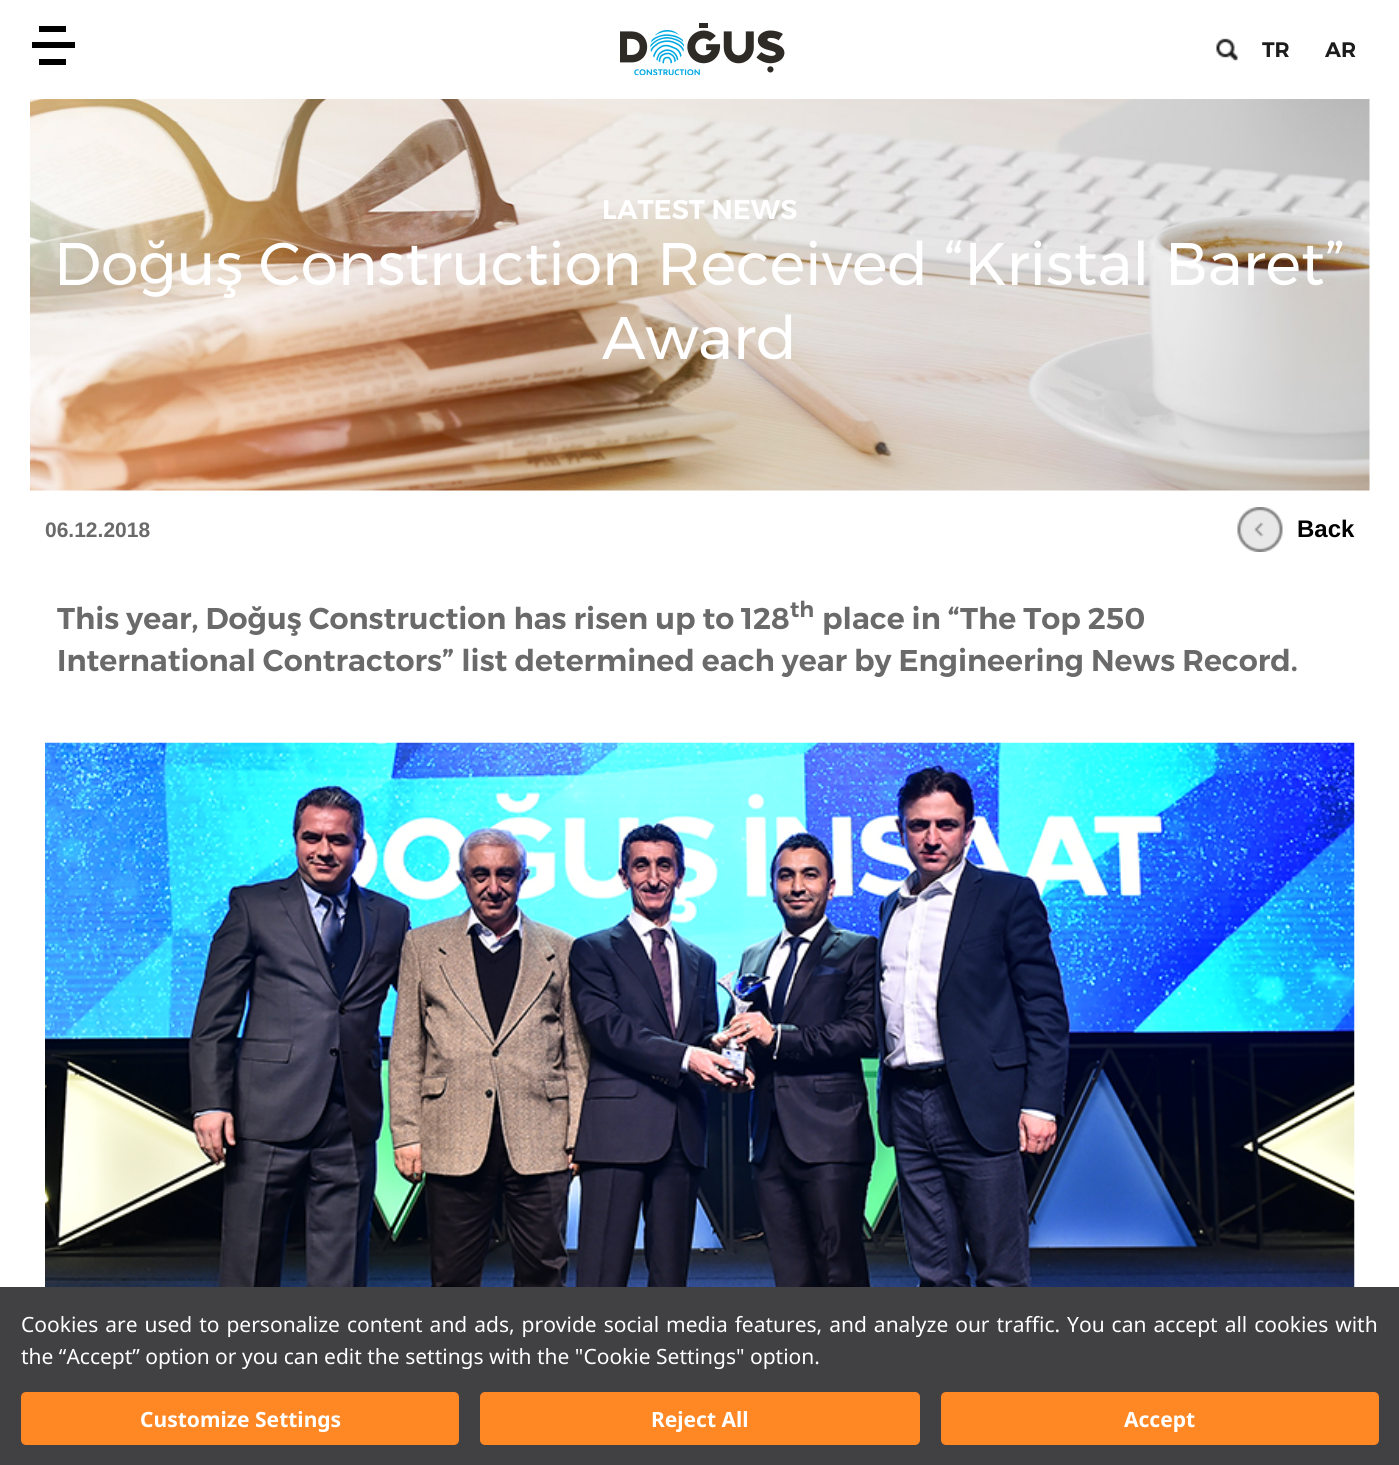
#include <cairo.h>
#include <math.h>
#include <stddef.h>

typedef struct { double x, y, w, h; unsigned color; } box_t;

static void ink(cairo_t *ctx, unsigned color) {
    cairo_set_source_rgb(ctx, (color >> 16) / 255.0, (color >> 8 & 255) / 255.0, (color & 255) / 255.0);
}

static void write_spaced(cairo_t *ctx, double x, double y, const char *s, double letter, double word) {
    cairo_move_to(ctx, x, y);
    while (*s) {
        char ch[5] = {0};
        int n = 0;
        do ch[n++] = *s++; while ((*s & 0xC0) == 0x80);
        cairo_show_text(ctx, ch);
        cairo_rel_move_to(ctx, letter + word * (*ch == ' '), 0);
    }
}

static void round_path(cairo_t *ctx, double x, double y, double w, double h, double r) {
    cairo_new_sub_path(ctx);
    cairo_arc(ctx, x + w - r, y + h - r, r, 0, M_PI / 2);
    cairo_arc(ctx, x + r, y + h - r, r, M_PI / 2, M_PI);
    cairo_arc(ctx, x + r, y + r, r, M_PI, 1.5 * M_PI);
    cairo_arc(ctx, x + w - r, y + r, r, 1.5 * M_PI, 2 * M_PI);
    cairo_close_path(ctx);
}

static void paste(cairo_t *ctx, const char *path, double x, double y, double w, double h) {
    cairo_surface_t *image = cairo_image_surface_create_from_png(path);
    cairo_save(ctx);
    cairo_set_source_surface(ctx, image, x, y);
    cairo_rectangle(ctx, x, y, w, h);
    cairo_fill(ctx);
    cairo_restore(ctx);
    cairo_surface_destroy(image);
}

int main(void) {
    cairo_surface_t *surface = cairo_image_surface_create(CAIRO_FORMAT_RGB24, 1399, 1465);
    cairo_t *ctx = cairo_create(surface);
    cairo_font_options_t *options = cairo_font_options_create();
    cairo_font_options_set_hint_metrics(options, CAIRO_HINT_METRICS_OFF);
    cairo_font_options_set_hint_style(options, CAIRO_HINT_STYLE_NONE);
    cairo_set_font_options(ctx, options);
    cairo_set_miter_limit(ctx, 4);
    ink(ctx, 0xFFFFFF);
    cairo_paint(ctx);
    {
        static const box_t items[] = {
            {39, 26, 27, 6, 0x000000},
            {32, 42, 43, 6, 0x000000},
            {39, 59, 27, 6, 0x000000},
        };
        for (size_t i = 0; i < sizeof items / sizeof *items; i++) {
            ink(ctx, items[i].color);
            cairo_rectangle(ctx, items[i].x, items[i].y, items[i].w, items[i].h);
            cairo_fill(ctx);
        }
    }
    paste(ctx, "media/1.png", 620, 23, 165, 52);
    paste(ctx, "media/2.png", 1216, 38, 22, 23);
    cairo_select_font_face(ctx, "Montserrat SemiBold", CAIRO_FONT_SLANT_NORMAL, CAIRO_FONT_WEIGHT_NORMAL);
    cairo_set_font_size(ctx, 21);
    ink(ctx, 0x1C1C1C);
    cairo_move_to(ctx, 1262, 57);
    cairo_show_text(ctx, "TR");
    cairo_move_to(ctx, 1325, 57);
    cairo_show_text(ctx, "AR");
    paste(ctx, "media/3.png", 30, 99, 1340, 392);
    cairo_set_font_size(ctx, 27);
    ink(ctx, 0xFFFFFF);
    cairo_move_to(ctx, 602, 219);
    cairo_show_text(ctx, "LATEST NEWS");
    cairo_select_font_face(ctx, "Montserrat", CAIRO_FONT_SLANT_NORMAL, CAIRO_FONT_WEIGHT_NORMAL);
    cairo_set_font_size(ctx, 60);
    cairo_move_to(ctx, 54, 285);
    cairo_show_text(ctx, "Doğuş Construction Received “Kristal Baret”");
    cairo_move_to(ctx, 602, 359);
    cairo_show_text(ctx, "Award");
    cairo_select_font_face(ctx, "Liberation Sans", CAIRO_FONT_SLANT_NORMAL, CAIRO_FONT_WEIGHT_BOLD);
    cairo_set_font_size(ctx, 21);
    ink(ctx, 0x6A6A6A);
    cairo_move_to(ctx, 45, 537);
    cairo_show_text(ctx, "06.12.2018");
    paste(ctx, "media/4.png", 1237, 507, 46, 45);
    cairo_set_font_size(ctx, 24);
    ink(ctx, 0x000000);
    cairo_move_to(ctx, 1297, 537);
    cairo_show_text(ctx, "Back");
    cairo_select_font_face(ctx, "Montserrat SemiBold", CAIRO_FONT_SLANT_NORMAL, CAIRO_FONT_WEIGHT_NORMAL);
    cairo_set_font_size(ctx, 30);
    ink(ctx, 0x6A6A6A);
    cairo_move_to(ctx, 57, 629);
    cairo_show_text(ctx, "This year, Doğuş Construction has risen up to 128");
    cairo_set_font_size(ctx, 22);
    cairo_move_to(ctx, 790, 617);
    cairo_show_text(ctx, "th");
    cairo_set_font_size(ctx, 30);
    cairo_move_to(ctx, 822, 629);
    cairo_show_text(ctx, "place in “The Top 250");
    cairo_move_to(ctx, 57, 671);
    cairo_show_text(ctx, "International Contractors” list determined each year by Engineering News Record.");
    paste(ctx, "media/5.png", 45, 742, 1310, 545);
    ink(ctx, 0x414042);
    cairo_rectangle(ctx, 0, 1287, 1399, 178);
    cairo_fill(ctx);
    cairo_select_font_face(ctx, "Noto Sans", CAIRO_FONT_SLANT_NORMAL, CAIRO_FONT_WEIGHT_NORMAL);
    cairo_set_font_size(ctx, 21);
    ink(ctx, 0xFFFFFF);
    write_spaced(ctx, 21, 1332, "Cookies are used to personalize content and ads, provide social media features, and analyze our traffic. You can accept all cookies with", 0, 1.5);
    cairo_move_to(ctx, 21, 1364);
    cairo_show_text(ctx, "the “Accept” option or you can edit the settings with the \"Cookie Settings\" option.");
    ink(ctx, 0xFF8724);
    round_path(ctx, 21, 1392, 438, 53, 5);
    cairo_fill(ctx);
    cairo_select_font_face(ctx, "Noto Sans", CAIRO_FONT_SLANT_NORMAL, CAIRO_FONT_WEIGHT_BOLD);
    ink(ctx, 0xFFFFFF);
    cairo_move_to(ctx, 140, 1427);
    cairo_show_text(ctx, "Customize Settings");
    ink(ctx, 0xFF8724);
    round_path(ctx, 480, 1392, 440, 53, 5);
    cairo_fill(ctx);
    ink(ctx, 0xFFFFFF);
    cairo_move_to(ctx, 651, 1427);
    cairo_show_text(ctx, "Reject All");
    ink(ctx, 0xFF8724);
    round_path(ctx, 941, 1392, 438, 53, 5);
    cairo_fill(ctx);
    ink(ctx, 0xFFFFFF);
    cairo_move_to(ctx, 1124, 1427);
    cairo_show_text(ctx, "Accept");
    cairo_surface_write_to_png(surface, "image.png");
    cairo_font_options_destroy(options);
    cairo_destroy(ctx);
    cairo_surface_destroy(surface);
    return 0;
}
